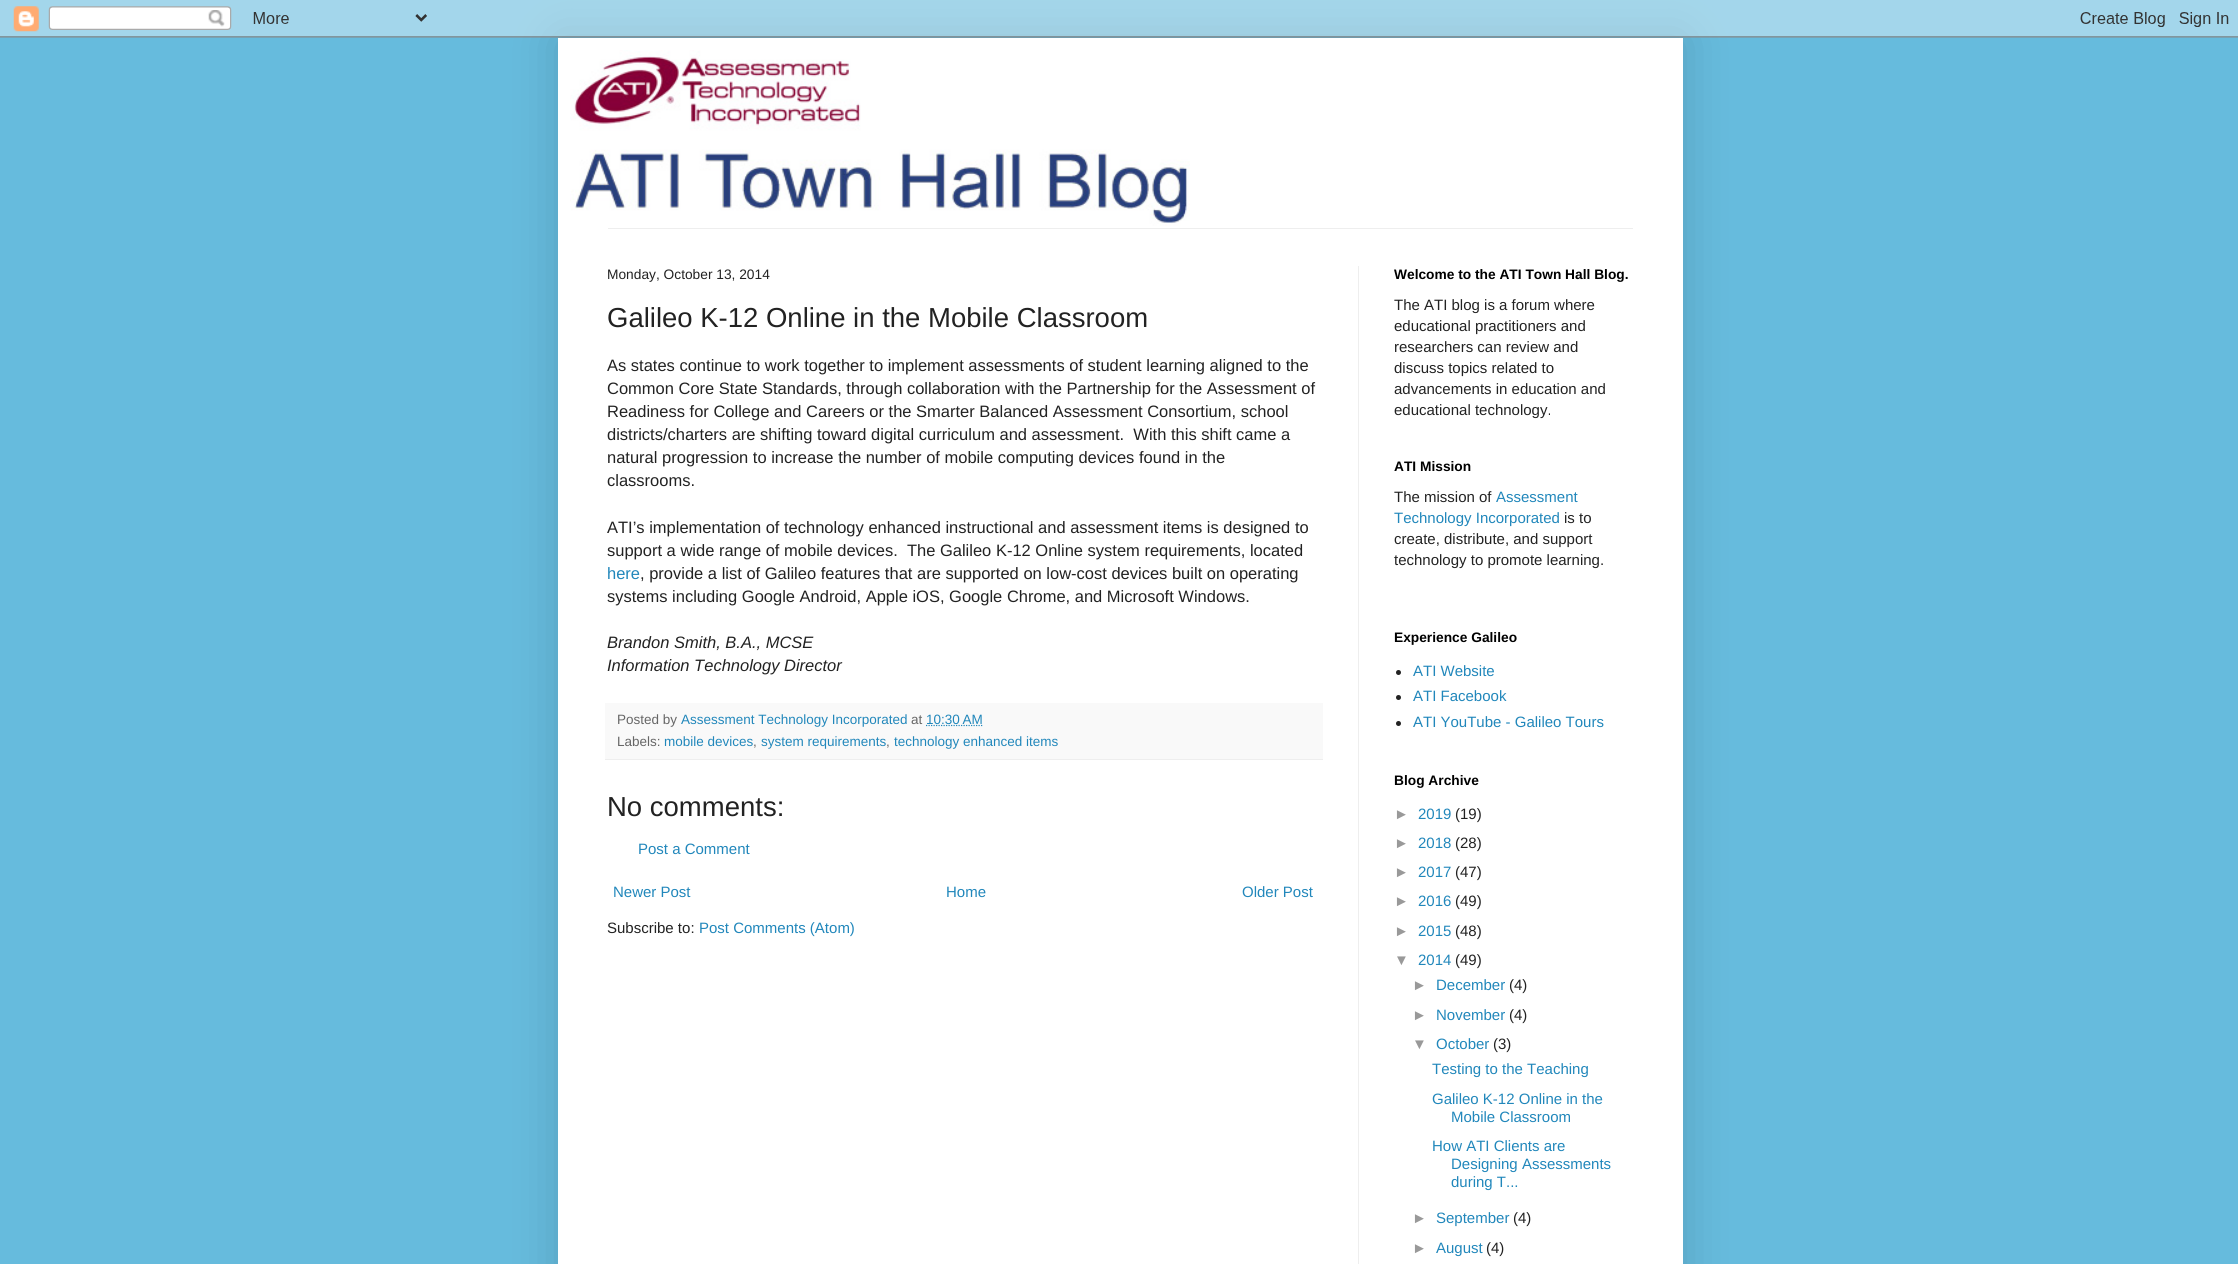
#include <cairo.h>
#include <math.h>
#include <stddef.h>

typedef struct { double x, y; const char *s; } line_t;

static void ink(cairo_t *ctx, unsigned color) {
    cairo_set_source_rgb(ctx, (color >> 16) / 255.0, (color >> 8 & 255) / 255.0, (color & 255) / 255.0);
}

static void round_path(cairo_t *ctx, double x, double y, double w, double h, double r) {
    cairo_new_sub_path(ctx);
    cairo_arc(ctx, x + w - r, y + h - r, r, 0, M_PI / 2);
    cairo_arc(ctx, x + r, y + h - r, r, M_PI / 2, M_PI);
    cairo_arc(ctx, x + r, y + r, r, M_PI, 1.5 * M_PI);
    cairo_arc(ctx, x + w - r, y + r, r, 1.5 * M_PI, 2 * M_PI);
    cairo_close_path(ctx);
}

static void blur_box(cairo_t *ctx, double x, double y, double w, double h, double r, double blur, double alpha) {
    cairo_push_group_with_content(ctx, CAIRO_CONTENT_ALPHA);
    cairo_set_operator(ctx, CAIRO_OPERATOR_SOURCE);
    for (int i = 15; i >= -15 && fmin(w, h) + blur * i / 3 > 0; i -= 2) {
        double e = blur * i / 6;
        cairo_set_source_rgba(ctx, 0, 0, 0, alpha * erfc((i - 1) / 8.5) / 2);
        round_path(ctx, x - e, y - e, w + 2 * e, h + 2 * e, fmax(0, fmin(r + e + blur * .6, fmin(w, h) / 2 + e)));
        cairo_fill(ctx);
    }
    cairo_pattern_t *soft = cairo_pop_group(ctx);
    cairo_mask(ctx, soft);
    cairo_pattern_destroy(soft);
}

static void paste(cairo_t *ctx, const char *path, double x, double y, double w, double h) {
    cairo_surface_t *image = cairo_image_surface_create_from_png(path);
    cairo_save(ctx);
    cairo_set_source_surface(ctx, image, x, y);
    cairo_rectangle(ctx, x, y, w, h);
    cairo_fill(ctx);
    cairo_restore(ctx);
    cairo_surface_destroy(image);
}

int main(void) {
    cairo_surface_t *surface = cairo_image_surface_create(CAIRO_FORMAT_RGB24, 2238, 1264);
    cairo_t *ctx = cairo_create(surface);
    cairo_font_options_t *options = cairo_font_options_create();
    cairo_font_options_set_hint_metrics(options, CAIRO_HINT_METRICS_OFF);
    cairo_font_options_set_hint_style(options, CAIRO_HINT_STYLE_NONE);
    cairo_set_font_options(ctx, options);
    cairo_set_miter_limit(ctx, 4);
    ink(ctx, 0x66BBDD);
    cairo_paint(ctx);
    ink(ctx, 0x000000);
    blur_box(ctx, 558, 38, 1125, 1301, 0, 25, 0.15);
    paste(ctx, "media/1.png", 0, 0, 2238, 38);
    ink(ctx, 0xFFFFFF);
    cairo_rectangle(ctx, 558, 38, 1125, 1226);
    cairo_fill(ctx);
    paste(ctx, "media/2.png", 570, 50, 620, 176);
    ink(ctx, 0xEEEEEE);
    cairo_rectangle(ctx, 608, 228, 1025, 1);
    cairo_fill(ctx);
    cairo_rectangle(ctx, 1358, 266, 1, 998);
    cairo_fill(ctx);
    cairo_select_font_face(ctx, "Liberation Sans", CAIRO_FONT_SLANT_NORMAL, CAIRO_FONT_WEIGHT_NORMAL);
    cairo_set_font_size(ctx, 13.75);
    ink(ctx, 0x222222);
    cairo_move_to(ctx, 607, 279);
    cairo_show_text(ctx, "Monday, October 13, 2014");
    cairo_set_font_size(ctx, 27.5);
    cairo_move_to(ctx, 607, 327);
    cairo_show_text(ctx, "Galileo K-12 Online in the Mobile Classroom");
    cairo_set_font_size(ctx, 16.5);
    {
        static const line_t items[] = {
            {607, 371, "As states continue to work together to implement assessments of student learning aligned to the"},
            {607, 394, "Common Core State Standards, through collaboration with the Partnership for the Assessment of"},
            {607, 417, "Readiness for College and Careers or the Smarter Balanced Assessment Consortium, school"},
            {607, 440, "districts/charters are shifting toward digital curriculum and assessment.  With this shift came a"},
            {607, 463, "natural progression to increase the number of mobile computing devices found in the"},
            {607, 486, "classrooms."},
            {607, 533, "ATI’s implementation of technology enhanced instructional and assessment items is designed to"},
            {607, 556, "support a wide range of mobile devices.  The Galileo K-12 Online system requirements, located"},
        };
        for (size_t i = 0; i < sizeof items / sizeof *items; i++) {
            cairo_move_to(ctx, items[i].x, items[i].y);
            cairo_show_text(ctx, items[i].s);
        }
    }
    ink(ctx, 0x2187BB);
    cairo_move_to(ctx, 607, 579);
    cairo_show_text(ctx, "here");
    ink(ctx, 0x222222);
    cairo_move_to(ctx, 640, 579);
    cairo_show_text(ctx, ", provide a list of Galileo features that are supported on low-cost devices built on operating");
    cairo_move_to(ctx, 607, 602);
    cairo_show_text(ctx, "systems including Google Android, Apple iOS, Google Chrome, and Microsoft Windows.");
    cairo_select_font_face(ctx, "Liberation Sans", CAIRO_FONT_SLANT_ITALIC, CAIRO_FONT_WEIGHT_NORMAL);
    cairo_move_to(ctx, 607, 648);
    cairo_show_text(ctx, "Brandon Smith, B.A., MCSE");
    cairo_move_to(ctx, 607, 671);
    cairo_show_text(ctx, "Information Technology Director");
    ink(ctx, 0xF9F9F9);
    cairo_rectangle(ctx, 605, 703, 718, 56);
    cairo_fill(ctx);
    ink(ctx, 0xEEEEEE);
    cairo_rectangle(ctx, 605, 759, 718, 1);
    cairo_fill(ctx);
    cairo_select_font_face(ctx, "Liberation Sans", CAIRO_FONT_SLANT_NORMAL, CAIRO_FONT_WEIGHT_NORMAL);
    cairo_set_font_size(ctx, 13.5);
    ink(ctx, 0x666666);
    cairo_move_to(ctx, 617, 724);
    cairo_show_text(ctx, "Posted by");
    ink(ctx, 0x2187BB);
    cairo_move_to(ctx, 681, 724);
    cairo_show_text(ctx, "Assessment Technology Incorporated");
    ink(ctx, 0x666666);
    cairo_move_to(ctx, 911, 724);
    cairo_show_text(ctx, "at");
    cairo_new_path(ctx);
    cairo_move_to(ctx, 926, 725.5);
    cairo_line_to(ctx, 982.5, 725.5);
    ink(ctx, 0x2187BB);
    cairo_set_line_width(ctx, 1.2);
    cairo_set_dash(ctx, (double[]){1.25, 1.25}, 2, 0);
    cairo_stroke(ctx);
    cairo_move_to(ctx, 926, 724);
    cairo_show_text(ctx, "10:30 AM");
    ink(ctx, 0x666666);
    cairo_move_to(ctx, 617, 746);
    cairo_show_text(ctx, "Labels:");
    ink(ctx, 0x2187BB);
    cairo_move_to(ctx, 664, 746);
    cairo_show_text(ctx, "mobile devices");
    ink(ctx, 0x666666);
    cairo_move_to(ctx, 753, 746);
    cairo_show_text(ctx, ",");
    ink(ctx, 0x2187BB);
    cairo_move_to(ctx, 761, 746);
    cairo_show_text(ctx, "system requirements");
    ink(ctx, 0x666666);
    cairo_move_to(ctx, 886, 746);
    cairo_show_text(ctx, ",");
    ink(ctx, 0x2187BB);
    cairo_move_to(ctx, 894, 746);
    cairo_show_text(ctx, "technology enhanced items");
    cairo_set_font_size(ctx, 27.5);
    ink(ctx, 0x222222);
    cairo_move_to(ctx, 607, 816);
    cairo_show_text(ctx, "No comments:");
    cairo_set_font_size(ctx, 15);
    ink(ctx, 0x2187BB);
    {
        static const line_t items[] = {
            {638, 854, "Post a Comment"},
            {613, 897, "Newer Post"},
            {946, 897, "Home"},
            {1242, 897, "Older Post"},
        };
        for (size_t i = 0; i < sizeof items / sizeof *items; i++) {
            cairo_move_to(ctx, items[i].x, items[i].y);
            cairo_show_text(ctx, items[i].s);
        }
    }
    ink(ctx, 0x222222);
    cairo_move_to(ctx, 607, 933);
    cairo_show_text(ctx, "Subscribe to:");
    ink(ctx, 0x2187BB);
    cairo_move_to(ctx, 699, 933);
    cairo_show_text(ctx, "Post Comments (Atom)");
    cairo_select_font_face(ctx, "Liberation Sans", CAIRO_FONT_SLANT_NORMAL, CAIRO_FONT_WEIGHT_BOLD);
    cairo_set_font_size(ctx, 13.75);
    ink(ctx, 0x000000);
    cairo_move_to(ctx, 1394, 279);
    cairo_show_text(ctx, "Welcome to the ATI Town Hall Blog.");
    cairo_select_font_face(ctx, "Liberation Sans", CAIRO_FONT_SLANT_NORMAL, CAIRO_FONT_WEIGHT_NORMAL);
    cairo_set_font_size(ctx, 15);
    ink(ctx, 0x222222);
    {
        static const line_t items[] = {
            {1394, 310, "The ATI blog is a forum where"},
            {1394, 331, "educational practitioners and"},
            {1394, 352, "researchers can review and"},
            {1394, 373, "discuss topics related to"},
            {1394, 394, "advancements in education and"},
            {1394, 415, "educational technology."},
        };
        for (size_t i = 0; i < sizeof items / sizeof *items; i++) {
            cairo_move_to(ctx, items[i].x, items[i].y);
            cairo_show_text(ctx, items[i].s);
        }
    }
    cairo_select_font_face(ctx, "Liberation Sans", CAIRO_FONT_SLANT_NORMAL, CAIRO_FONT_WEIGHT_BOLD);
    cairo_set_font_size(ctx, 13.75);
    ink(ctx, 0x000000);
    cairo_move_to(ctx, 1394, 471);
    cairo_show_text(ctx, "ATI Mission");
    cairo_select_font_face(ctx, "Liberation Sans", CAIRO_FONT_SLANT_NORMAL, CAIRO_FONT_WEIGHT_NORMAL);
    cairo_set_font_size(ctx, 15);
    ink(ctx, 0x222222);
    cairo_move_to(ctx, 1394, 502);
    cairo_show_text(ctx, "The mission of");
    ink(ctx, 0x2187BB);
    cairo_move_to(ctx, 1496, 502);
    cairo_show_text(ctx, "Assessment");
    cairo_move_to(ctx, 1394, 523);
    cairo_show_text(ctx, "Technology Incorporated");
    ink(ctx, 0x222222);
    {
        static const line_t items[] = {
            {1564, 523, "is to"},
            {1394, 544, "create, distribute, and support"},
            {1394, 565, "technology to promote learning."},
        };
        for (size_t i = 0; i < sizeof items / sizeof *items; i++) {
            cairo_move_to(ctx, items[i].x, items[i].y);
            cairo_show_text(ctx, items[i].s);
        }
    }
    cairo_select_font_face(ctx, "Liberation Sans", CAIRO_FONT_SLANT_NORMAL, CAIRO_FONT_WEIGHT_BOLD);
    cairo_set_font_size(ctx, 13.75);
    ink(ctx, 0x000000);
    cairo_move_to(ctx, 1394, 642);
    cairo_show_text(ctx, "Experience Galileo");
    ink(ctx, 0x222222);
    cairo_new_path(ctx);
    cairo_arc(ctx, 1398.5, 672.5, 2.5, 0, 2 * M_PI);
    cairo_fill(ctx);
    cairo_select_font_face(ctx, "Liberation Sans", CAIRO_FONT_SLANT_NORMAL, CAIRO_FONT_WEIGHT_NORMAL);
    cairo_set_font_size(ctx, 15);
    ink(ctx, 0x2187BB);
    cairo_move_to(ctx, 1413, 676);
    cairo_show_text(ctx, "ATI Website");
    ink(ctx, 0x222222);
    cairo_new_path(ctx);
    cairo_arc(ctx, 1398.5, 697.5, 2.5, 0, 2 * M_PI);
    cairo_fill(ctx);
    ink(ctx, 0x2187BB);
    cairo_move_to(ctx, 1413, 701);
    cairo_show_text(ctx, "ATI Facebook");
    ink(ctx, 0x222222);
    cairo_new_path(ctx);
    cairo_arc(ctx, 1398.5, 723.5, 2.5, 0, 2 * M_PI);
    cairo_fill(ctx);
    ink(ctx, 0x2187BB);
    cairo_move_to(ctx, 1413, 727);
    cairo_show_text(ctx, "ATI YouTube - Galileo Tours");
    cairo_select_font_face(ctx, "Liberation Sans", CAIRO_FONT_SLANT_NORMAL, CAIRO_FONT_WEIGHT_BOLD);
    cairo_set_font_size(ctx, 13.75);
    ink(ctx, 0x000000);
    cairo_move_to(ctx, 1394, 785);
    cairo_show_text(ctx, "Blog Archive");
    cairo_select_font_face(ctx, "Liberation Sans", CAIRO_FONT_SLANT_NORMAL, CAIRO_FONT_WEIGHT_NORMAL);
    cairo_set_font_size(ctx, 15);
    ink(ctx, 0x999999);
    cairo_move_to(ctx, 1394, 819);
    cairo_show_text(ctx, "►");
    ink(ctx, 0x2187BB);
    cairo_move_to(ctx, 1418, 819);
    cairo_show_text(ctx, "2019");
    ink(ctx, 0x222222);
    cairo_move_to(ctx, 1455, 819);
    cairo_show_text(ctx, "(19)");
    ink(ctx, 0x999999);
    cairo_move_to(ctx, 1394, 848);
    cairo_show_text(ctx, "►");
    ink(ctx, 0x2187BB);
    cairo_move_to(ctx, 1418, 848);
    cairo_show_text(ctx, "2018");
    ink(ctx, 0x222222);
    cairo_move_to(ctx, 1455, 848);
    cairo_show_text(ctx, "(28)");
    ink(ctx, 0x999999);
    cairo_move_to(ctx, 1394, 877);
    cairo_show_text(ctx, "►");
    ink(ctx, 0x2187BB);
    cairo_move_to(ctx, 1418, 877);
    cairo_show_text(ctx, "2017");
    ink(ctx, 0x222222);
    cairo_move_to(ctx, 1455, 877);
    cairo_show_text(ctx, "(47)");
    ink(ctx, 0x999999);
    cairo_move_to(ctx, 1394, 906);
    cairo_show_text(ctx, "►");
    ink(ctx, 0x2187BB);
    cairo_move_to(ctx, 1418, 906);
    cairo_show_text(ctx, "2016");
    ink(ctx, 0x222222);
    cairo_move_to(ctx, 1455, 906);
    cairo_show_text(ctx, "(49)");
    ink(ctx, 0x999999);
    cairo_move_to(ctx, 1394, 936);
    cairo_show_text(ctx, "►");
    ink(ctx, 0x2187BB);
    cairo_move_to(ctx, 1418, 936);
    cairo_show_text(ctx, "2015");
    ink(ctx, 0x222222);
    cairo_move_to(ctx, 1455, 936);
    cairo_show_text(ctx, "(48)");
    ink(ctx, 0x999999);
    cairo_move_to(ctx, 1394, 965);
    cairo_show_text(ctx, "▼");
    ink(ctx, 0x2187BB);
    cairo_move_to(ctx, 1418, 965);
    cairo_show_text(ctx, "2014");
    ink(ctx, 0x222222);
    cairo_move_to(ctx, 1455, 965);
    cairo_show_text(ctx, "(49)");
    ink(ctx, 0x999999);
    cairo_move_to(ctx, 1412, 990);
    cairo_show_text(ctx, "►");
    ink(ctx, 0x2187BB);
    cairo_move_to(ctx, 1436, 990);
    cairo_show_text(ctx, "December");
    ink(ctx, 0x222222);
    cairo_move_to(ctx, 1509, 990);
    cairo_show_text(ctx, "(4)");
    ink(ctx, 0x999999);
    cairo_move_to(ctx, 1412, 1020);
    cairo_show_text(ctx, "►");
    ink(ctx, 0x2187BB);
    cairo_move_to(ctx, 1436, 1020);
    cairo_show_text(ctx, "November");
    ink(ctx, 0x222222);
    cairo_move_to(ctx, 1509, 1020);
    cairo_show_text(ctx, "(4)");
    ink(ctx, 0x999999);
    cairo_move_to(ctx, 1412, 1049);
    cairo_show_text(ctx, "▼");
    ink(ctx, 0x2187BB);
    cairo_move_to(ctx, 1436, 1049);
    cairo_show_text(ctx, "October");
    ink(ctx, 0x222222);
    cairo_move_to(ctx, 1493, 1049);
    cairo_show_text(ctx, "(3)");
    ink(ctx, 0x2187BB);
    {
        static const line_t items[] = {
            {1432, 1074, "Testing to the Teaching"},
            {1432, 1104, "Galileo K-12 Online in the"},
            {1451, 1122, "Mobile Classroom"},
            {1432, 1151, "How ATI Clients are"},
            {1451, 1169, "Designing Assessments"},
            {1451, 1187, "during T..."},
        };
        for (size_t i = 0; i < sizeof items / sizeof *items; i++) {
            cairo_move_to(ctx, items[i].x, items[i].y);
            cairo_show_text(ctx, items[i].s);
        }
    }
    ink(ctx, 0x999999);
    cairo_move_to(ctx, 1412, 1223);
    cairo_show_text(ctx, "►");
    ink(ctx, 0x2187BB);
    cairo_move_to(ctx, 1436, 1223);
    cairo_show_text(ctx, "September");
    ink(ctx, 0x222222);
    cairo_move_to(ctx, 1513, 1223);
    cairo_show_text(ctx, "(4)");
    ink(ctx, 0x999999);
    cairo_move_to(ctx, 1412, 1253);
    cairo_show_text(ctx, "►");
    ink(ctx, 0x2187BB);
    cairo_move_to(ctx, 1436, 1253);
    cairo_show_text(ctx, "August");
    ink(ctx, 0x222222);
    cairo_move_to(ctx, 1486, 1253);
    cairo_show_text(ctx, "(4)");
    cairo_surface_write_to_png(surface, "image.png");
    cairo_font_options_destroy(options);
    cairo_destroy(ctx);
    cairo_surface_destroy(surface);
    return 0;
}
